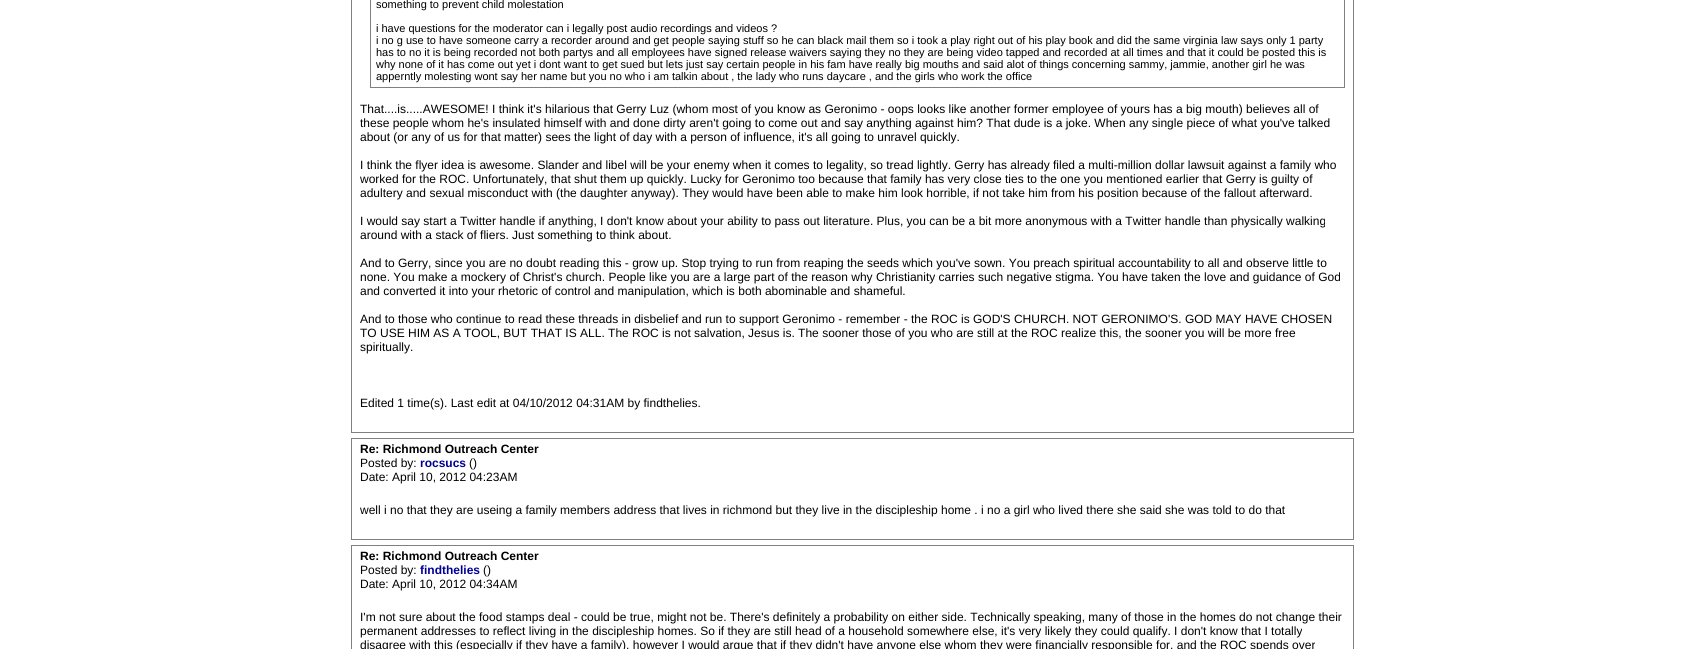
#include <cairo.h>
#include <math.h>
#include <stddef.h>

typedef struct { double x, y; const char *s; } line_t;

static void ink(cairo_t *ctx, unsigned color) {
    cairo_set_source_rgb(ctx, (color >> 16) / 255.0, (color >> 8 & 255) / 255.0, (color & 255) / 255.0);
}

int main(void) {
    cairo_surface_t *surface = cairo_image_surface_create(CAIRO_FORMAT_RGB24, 1705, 649);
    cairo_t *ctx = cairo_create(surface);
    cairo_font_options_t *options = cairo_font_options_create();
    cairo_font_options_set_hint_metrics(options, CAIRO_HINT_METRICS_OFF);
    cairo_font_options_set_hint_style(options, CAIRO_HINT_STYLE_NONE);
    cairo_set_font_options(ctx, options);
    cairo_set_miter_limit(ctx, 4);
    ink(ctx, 0xFFFFFF);
    cairo_paint(ctx);
    cairo_rectangle(ctx, 351.5, -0.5, 1002, 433);
    ink(ctx, 0x808080);
    cairo_set_line_width(ctx, 1);
    cairo_stroke(ctx);
    cairo_rectangle(ctx, 370.5, -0.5, 974, 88);
    cairo_stroke(ctx);
    cairo_select_font_face(ctx, "Liberation Sans", CAIRO_FONT_SLANT_NORMAL, CAIRO_FONT_WEIGHT_NORMAL);
    cairo_set_font_size(ctx, 11);
    ink(ctx, 0x000000);
    {
        static const line_t items[] = {
            {376, 8, "something to prevent child molestation"},
            {376, 32, "i have questions for the moderator can i legally post audio recordings and videos ?"},
            {376, 44, "i no g use to have someone carry a recorder around and get people saying stuff so he can black mail them so i took a play right out of his play book and did the same virginia law says only 1 party"},
            {376, 56, "has to no it is being recorded not both partys and all employees have signed release waivers saying they no they are being video tapped and recorded at all times and that it could be posted this is"},
            {376, 68, "why none of it has come out yet i dont want to get sued but lets just say certain people in his fam have really big mouths and said alot of things concerning sammy, jammie, another girl he was"},
            {376, 80, "apperntly molesting wont say her name but you no who i am talkin about , the lady who runs daycare , and the girls who work the office"},
        };
        for (size_t i = 0; i < sizeof items / sizeof *items; i++) {
            cairo_move_to(ctx, items[i].x, items[i].y);
            cairo_show_text(ctx, items[i].s);
        }
    }
    cairo_set_font_size(ctx, 12);
    {
        static const line_t items[] = {
            {360, 113, "That....is.....AWESOME! I think it's hilarious that Gerry Luz (whom most of you know as Geronimo - oops looks like another former employee of yours has a big mouth) believes all of"},
            {360, 127, "these people whom he's insulated himself with and done dirty aren't going to come out and say anything against him? That dude is a joke. When any single piece of what you've talked"},
            {360, 141, "about (or any of us for that matter) sees the light of day with a person of influence, it's all going to unravel quickly."},
            {360, 169, "I think the flyer idea is awesome. Slander and libel will be your enemy when it comes to legality, so tread lightly. Gerry has already filed a multi-million dollar lawsuit against a family who"},
            {360, 183, "worked for the ROC. Unfortunately, that shut them up quickly. Lucky for Geronimo too because that family has very close ties to the one you mentioned earlier that Gerry is guilty of"},
            {360, 197, "adultery and sexual misconduct with (the daughter anyway). They would have been able to make him look horrible, if not take him from his position because of the fallout afterward."},
            {360, 225, "I would say start a Twitter handle if anything, I don't know about your ability to pass out literature. Plus, you can be a bit more anonymous with a Twitter handle than physically walking"},
            {360, 239, "around with a stack of fliers. Just something to think about."},
            {360, 267, "And to Gerry, since you are no doubt reading this - grow up. Stop trying to run from reaping the seeds which you've sown. You preach spiritual accountability to all and observe little to"},
            {360, 281, "none. You make a mockery of Christ's church. People like you are a large part of the reason why Christianity carries such negative stigma. You have taken the love and guidance of God"},
            {360, 295, "and converted it into your rhetoric of control and manipulation, which is both abominable and shameful."},
            {360, 323, "And to those who continue to read these threads in disbelief and run to support Geronimo - remember - the ROC is GOD'S CHURCH. NOT GERONIMO'S. GOD MAY HAVE CHOSEN"},
            {360, 337, "TO USE HIM AS A TOOL, BUT THAT IS ALL. The ROC is not salvation, Jesus is. The sooner those of you who are still at the ROC realize this, the sooner you will be more free"},
            {360, 351, "spiritually."},
            {360, 407, "Edited 1 time(s). Last edit at 04/10/2012 04:31AM by findthelies."},
        };
        for (size_t i = 0; i < sizeof items / sizeof *items; i++) {
            cairo_move_to(ctx, items[i].x, items[i].y);
            cairo_show_text(ctx, items[i].s);
        }
    }
    cairo_rectangle(ctx, 351.5, 438.5, 1002, 101);
    ink(ctx, 0x808080);
    cairo_stroke(ctx);
    cairo_select_font_face(ctx, "Liberation Sans", CAIRO_FONT_SLANT_NORMAL, CAIRO_FONT_WEIGHT_BOLD);
    ink(ctx, 0x000000);
    cairo_move_to(ctx, 360, 453);
    cairo_show_text(ctx, "Re: Richmond Outreach Center");
    cairo_select_font_face(ctx, "Liberation Sans", CAIRO_FONT_SLANT_NORMAL, CAIRO_FONT_WEIGHT_NORMAL);
    cairo_move_to(ctx, 360, 467);
    cairo_show_text(ctx, "Posted by:");
    cairo_select_font_face(ctx, "Liberation Sans", CAIRO_FONT_SLANT_NORMAL, CAIRO_FONT_WEIGHT_BOLD);
    ink(ctx, 0x000099);
    cairo_move_to(ctx, 420, 467);
    cairo_show_text(ctx, "rocsucs");
    cairo_select_font_face(ctx, "Liberation Sans", CAIRO_FONT_SLANT_NORMAL, CAIRO_FONT_WEIGHT_NORMAL);
    ink(ctx, 0x000000);
    {
        static const line_t items[] = {
            {469, 467, "()"},
            {360, 481, "Date: April 10, 2012 04:23AM"},
            {360, 514, "well i no that they are useing a family members address that lives in richmond but they live in the discipleship home . i no a girl who lived there she said she was told to do that"},
        };
        for (size_t i = 0; i < sizeof items / sizeof *items; i++) {
            cairo_move_to(ctx, items[i].x, items[i].y);
            cairo_show_text(ctx, items[i].s);
        }
    }
    cairo_rectangle(ctx, 351.5, 545.5, 1002, 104);
    ink(ctx, 0x808080);
    cairo_stroke(ctx);
    cairo_select_font_face(ctx, "Liberation Sans", CAIRO_FONT_SLANT_NORMAL, CAIRO_FONT_WEIGHT_BOLD);
    ink(ctx, 0x000000);
    cairo_move_to(ctx, 360, 560);
    cairo_show_text(ctx, "Re: Richmond Outreach Center");
    cairo_select_font_face(ctx, "Liberation Sans", CAIRO_FONT_SLANT_NORMAL, CAIRO_FONT_WEIGHT_NORMAL);
    cairo_move_to(ctx, 360, 574);
    cairo_show_text(ctx, "Posted by:");
    cairo_select_font_face(ctx, "Liberation Sans", CAIRO_FONT_SLANT_NORMAL, CAIRO_FONT_WEIGHT_BOLD);
    ink(ctx, 0x000099);
    cairo_move_to(ctx, 420, 574);
    cairo_show_text(ctx, "findthelies");
    cairo_select_font_face(ctx, "Liberation Sans", CAIRO_FONT_SLANT_NORMAL, CAIRO_FONT_WEIGHT_NORMAL);
    ink(ctx, 0x000000);
    {
        static const line_t items[] = {
            {483, 574, "()"},
            {360, 588, "Date: April 10, 2012 04:34AM"},
            {360, 621, "I'm not sure about the food stamps deal - could be true, might not be. There's definitely a probability on either side. Technically speaking, many of those in the homes do not change their"},
            {360, 635, "permanent addresses to reflect living in the discipleship homes. So if they are still head of a household somewhere else, it's very likely they could qualify. I don't know that I totally"},
            {360, 649, "disagree with this (especially if they have a family), however I would argue that if they didn't have anyone else whom they were financially responsible for, and the ROC spends over"},
        };
        for (size_t i = 0; i < sizeof items / sizeof *items; i++) {
            cairo_move_to(ctx, items[i].x, items[i].y);
            cairo_show_text(ctx, items[i].s);
        }
    }
    cairo_surface_write_to_png(surface, "image.png");
    cairo_font_options_destroy(options);
    cairo_destroy(ctx);
    cairo_surface_destroy(surface);
    return 0;
}
